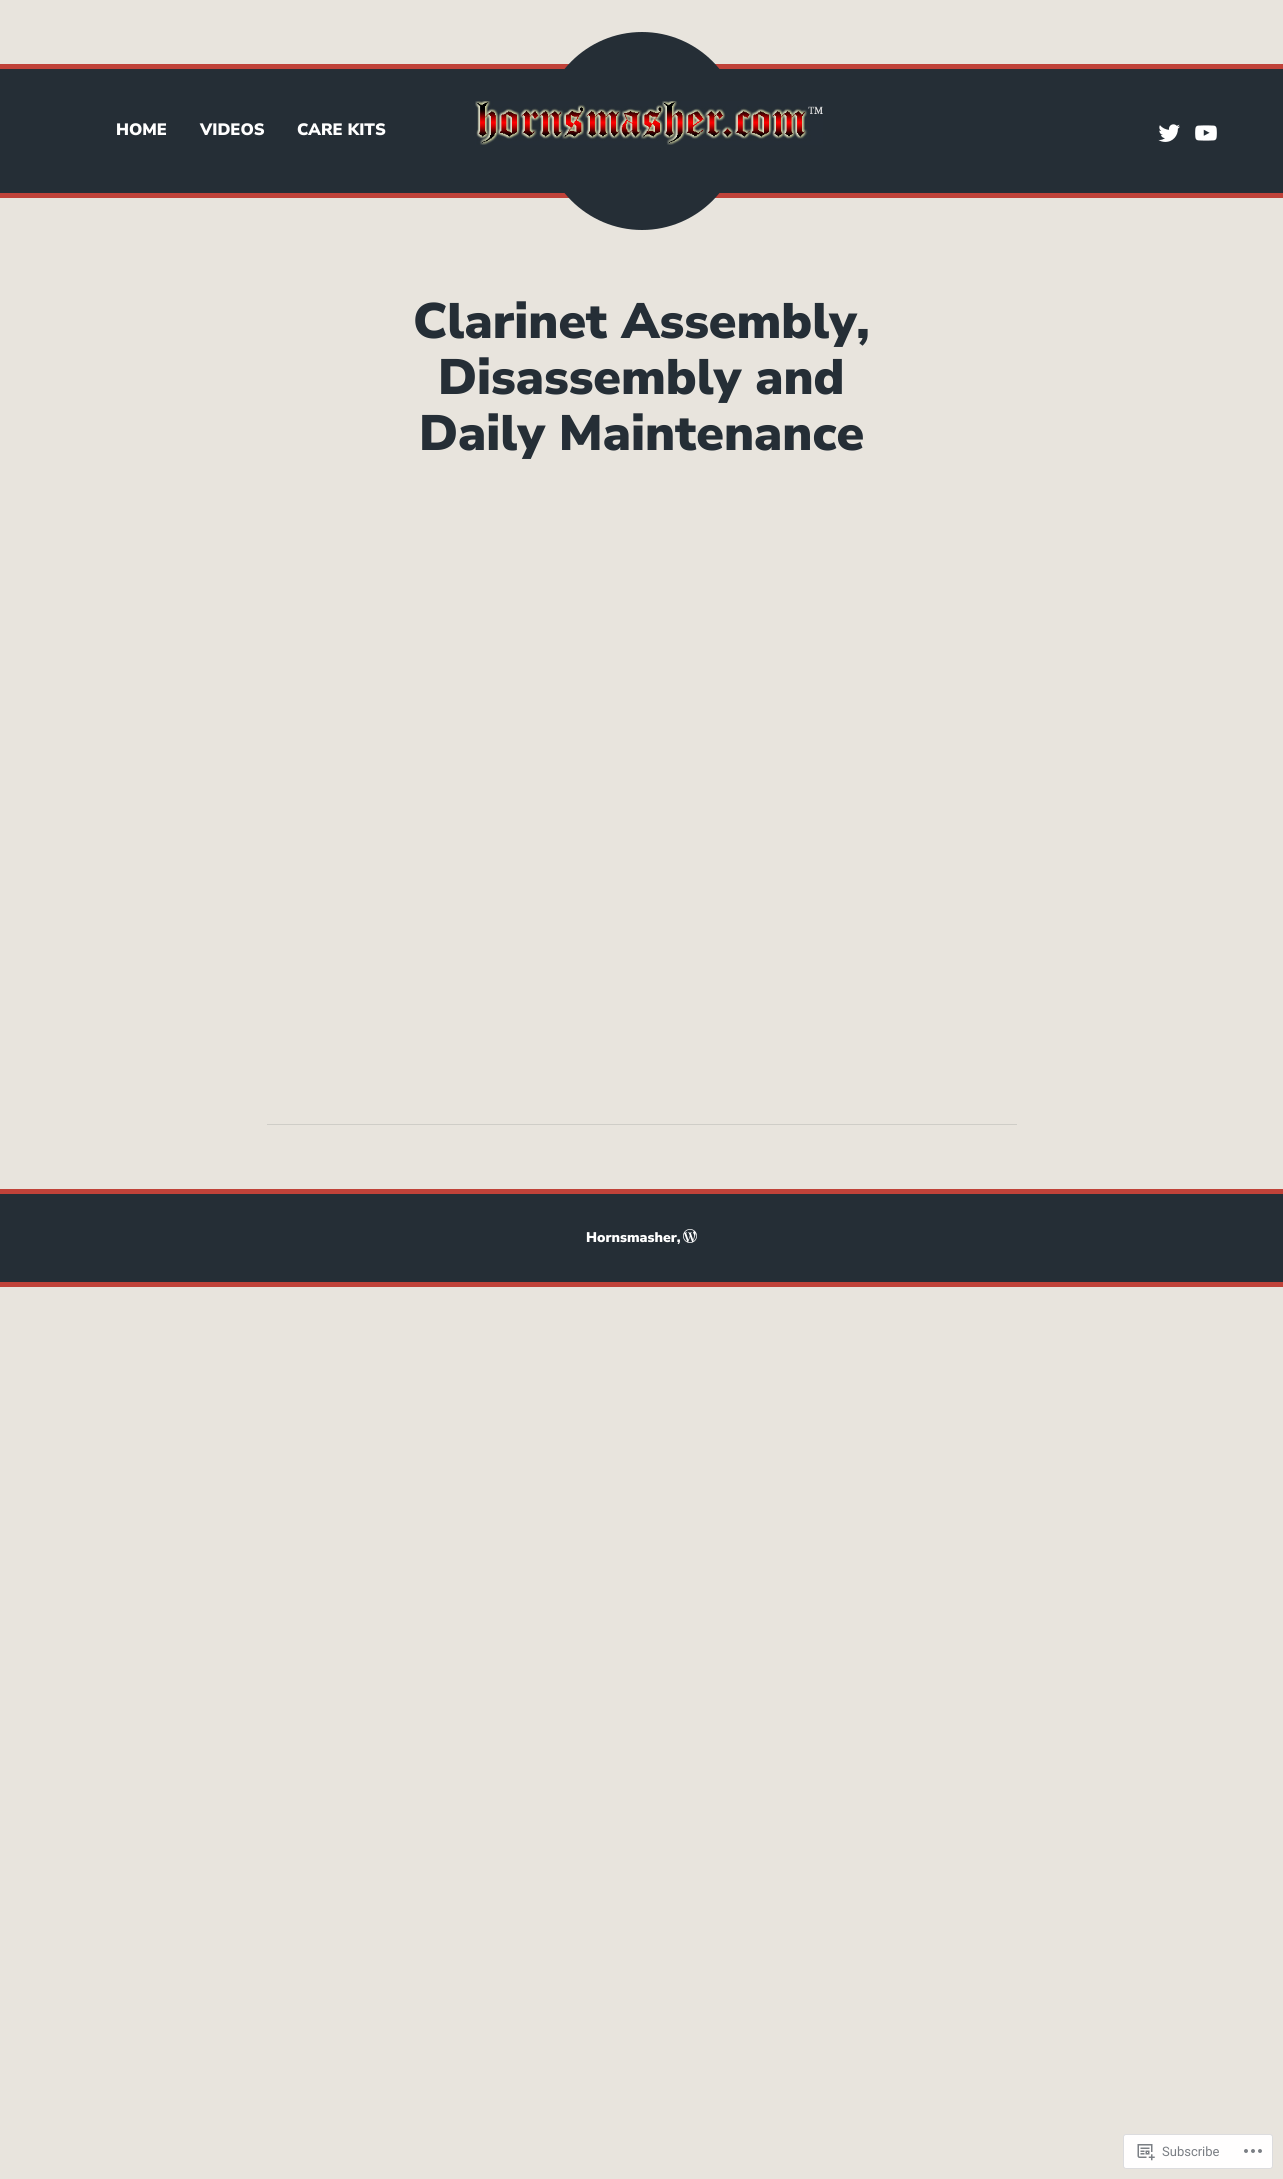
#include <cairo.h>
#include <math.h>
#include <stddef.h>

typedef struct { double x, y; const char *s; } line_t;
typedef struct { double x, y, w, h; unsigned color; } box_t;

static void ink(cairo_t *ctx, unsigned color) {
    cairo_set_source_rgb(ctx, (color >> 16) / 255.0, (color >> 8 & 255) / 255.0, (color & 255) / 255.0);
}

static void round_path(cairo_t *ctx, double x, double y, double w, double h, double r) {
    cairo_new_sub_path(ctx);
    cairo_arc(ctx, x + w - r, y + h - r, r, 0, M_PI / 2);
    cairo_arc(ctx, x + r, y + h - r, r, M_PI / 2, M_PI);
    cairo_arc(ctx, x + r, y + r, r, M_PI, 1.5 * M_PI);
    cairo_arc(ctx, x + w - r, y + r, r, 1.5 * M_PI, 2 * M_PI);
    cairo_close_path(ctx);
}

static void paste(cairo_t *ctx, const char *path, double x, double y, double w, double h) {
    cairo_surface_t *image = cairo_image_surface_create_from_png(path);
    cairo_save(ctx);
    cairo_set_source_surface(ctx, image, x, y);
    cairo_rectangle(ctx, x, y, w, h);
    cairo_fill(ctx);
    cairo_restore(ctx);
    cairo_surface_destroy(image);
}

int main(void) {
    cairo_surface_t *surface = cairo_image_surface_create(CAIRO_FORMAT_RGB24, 1283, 2179);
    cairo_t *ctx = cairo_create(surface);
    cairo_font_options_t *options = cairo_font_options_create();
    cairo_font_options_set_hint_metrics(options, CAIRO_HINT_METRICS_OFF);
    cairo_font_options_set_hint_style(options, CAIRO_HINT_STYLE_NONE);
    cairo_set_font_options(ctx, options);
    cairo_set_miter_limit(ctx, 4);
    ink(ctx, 0xE8E4DD);
    cairo_paint(ctx);
    {
        static const box_t items[] = {
            {0, 69, 1283, 124, 0x252E36},
            {0, 64, 1283, 5, 0xC04239},
            {0, 193, 1283, 5, 0xC04239},
        };
        for (size_t i = 0; i < sizeof items / sizeof *items; i++) {
            ink(ctx, items[i].color);
            cairo_rectangle(ctx, items[i].x, items[i].y, items[i].w, items[i].h);
            cairo_fill(ctx);
        }
    }
    ink(ctx, 0x252E36);
    cairo_new_path(ctx);
    cairo_move_to(ctx, 642, 32);
    cairo_curve_to(ctx, 697, 32, 742, 77, 742, 132);
    cairo_line_to(ctx, 542, 132);
    cairo_curve_to(ctx, 542, 77, 587, 32, 642, 32);
    cairo_close_path(ctx);
    cairo_fill(ctx);
    cairo_select_font_face(ctx, "Nunito Sans Black", CAIRO_FONT_SLANT_NORMAL, CAIRO_FONT_WEIGHT_NORMAL);
    cairo_set_font_size(ctx, 16.5);
    ink(ctx, 0xFFFFFF);
    {
        static const line_t items[] = {
            {116, 135, "HOME"},
            {200, 135, "VIDEOS"},
            {297, 135, "CARE KITS"},
        };
        for (size_t i = 0; i < sizeof items / sizeof *items; i++) {
            cairo_move_to(ctx, items[i].x, items[i].y);
            cairo_show_text(ctx, items[i].s);
        }
    }
    ink(ctx, 0x252E36);
    cairo_new_path(ctx);
    cairo_move_to(ctx, 542, 130);
    cairo_line_to(ctx, 742, 130);
    cairo_curve_to(ctx, 742, 185, 697, 230, 642, 230);
    cairo_curve_to(ctx, 587, 230, 542, 185, 542, 130);
    cairo_close_path(ctx);
    cairo_fill(ctx);
    paste(ctx, "media/1.png", 475, 101, 348, 44);
    paste(ctx, "media/2.png", 1158, 124, 22, 18);
    paste(ctx, "media/3.png", 1195, 125, 22, 16);
    cairo_set_font_size(ctx, 49.75);
    {
        static const line_t items[] = {
            {413, 338, "Clarinet Assembly,"},
            {438, 394, "Disassembly and"},
            {419, 450, "Daily Maintenance"},
        };
        for (size_t i = 0; i < sizeof items / sizeof *items; i++) {
            cairo_move_to(ctx, items[i].x, items[i].y);
            cairo_show_text(ctx, items[i].s);
        }
    }
    {
        static const box_t items[] = {
            {267, 1124, 750, 1, 0xCFCDC7},
            {0, 1194, 1283, 88, 0x252E36},
            {0, 1189, 1283, 5, 0xC04239},
            {0, 1282, 1283, 5, 0xC04239},
        };
        for (size_t i = 0; i < sizeof items / sizeof *items; i++) {
            ink(ctx, items[i].color);
            cairo_rectangle(ctx, items[i].x, items[i].y, items[i].w, items[i].h);
            cairo_fill(ctx);
        }
    }
    cairo_set_font_size(ctx, 14);
    ink(ctx, 0xFFFFFF);
    cairo_move_to(ctx, 586, 1242);
    cairo_show_text(ctx, "Hornsmasher,");
    paste(ctx, "media/4.png", 683, 1229, 14, 14);
    ink(ctx, 0xFFFEFE);
    round_path(ctx, 1123.5, 2134.5, 149, 34, 2.5);
    cairo_fill_preserve(ctx);
    ink(ctx, 0xDCDCDE);
    cairo_set_line_width(ctx, 1);
    cairo_stroke(ctx);
    paste(ctx, "media/5.png", 1137, 2144, 18, 17);
    cairo_select_font_face(ctx, "Roboto", CAIRO_FONT_SLANT_NORMAL, CAIRO_FONT_WEIGHT_NORMAL);
    cairo_set_font_size(ctx, 13);
    ink(ctx, 0x7A7E84);
    cairo_move_to(ctx, 1162, 2156);
    cairo_show_text(ctx, "Subscribe");
    paste(ctx, "media/6.png", 1244, 2149, 18, 4);
    cairo_surface_write_to_png(surface, "image.png");
    cairo_font_options_destroy(options);
    cairo_destroy(ctx);
    cairo_surface_destroy(surface);
    return 0;
}
